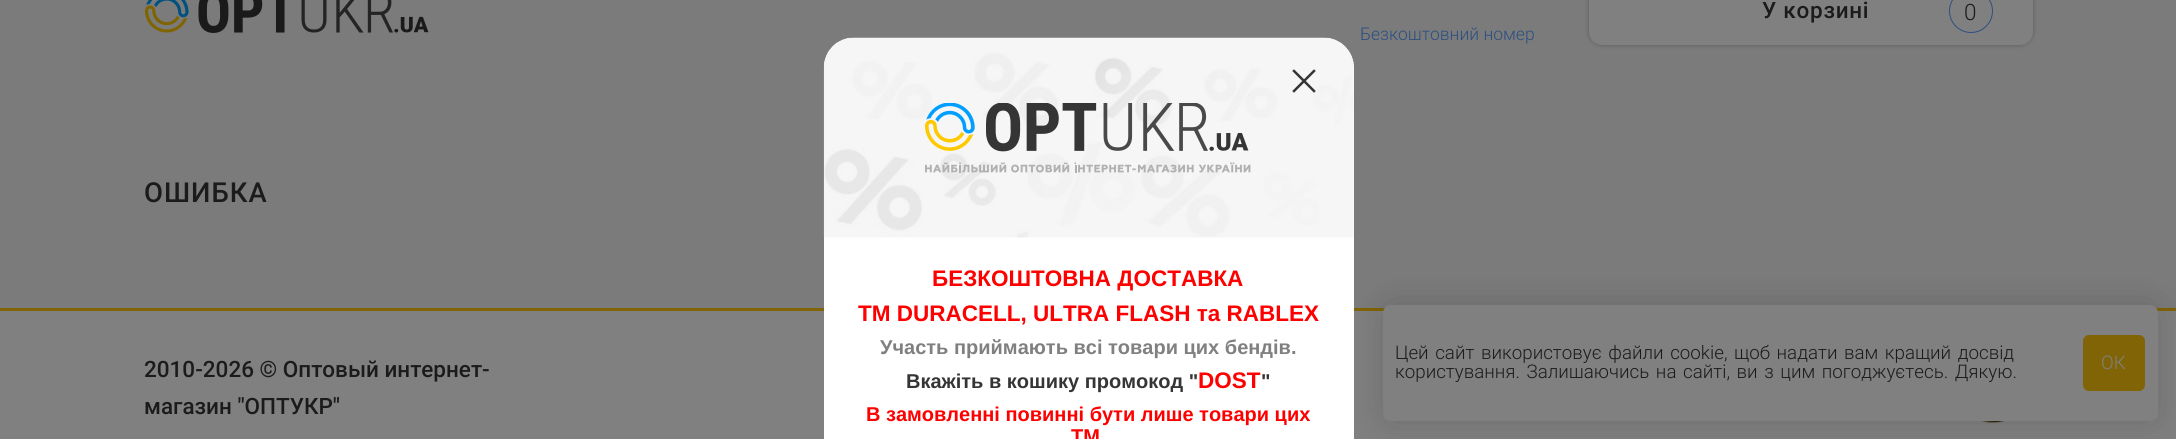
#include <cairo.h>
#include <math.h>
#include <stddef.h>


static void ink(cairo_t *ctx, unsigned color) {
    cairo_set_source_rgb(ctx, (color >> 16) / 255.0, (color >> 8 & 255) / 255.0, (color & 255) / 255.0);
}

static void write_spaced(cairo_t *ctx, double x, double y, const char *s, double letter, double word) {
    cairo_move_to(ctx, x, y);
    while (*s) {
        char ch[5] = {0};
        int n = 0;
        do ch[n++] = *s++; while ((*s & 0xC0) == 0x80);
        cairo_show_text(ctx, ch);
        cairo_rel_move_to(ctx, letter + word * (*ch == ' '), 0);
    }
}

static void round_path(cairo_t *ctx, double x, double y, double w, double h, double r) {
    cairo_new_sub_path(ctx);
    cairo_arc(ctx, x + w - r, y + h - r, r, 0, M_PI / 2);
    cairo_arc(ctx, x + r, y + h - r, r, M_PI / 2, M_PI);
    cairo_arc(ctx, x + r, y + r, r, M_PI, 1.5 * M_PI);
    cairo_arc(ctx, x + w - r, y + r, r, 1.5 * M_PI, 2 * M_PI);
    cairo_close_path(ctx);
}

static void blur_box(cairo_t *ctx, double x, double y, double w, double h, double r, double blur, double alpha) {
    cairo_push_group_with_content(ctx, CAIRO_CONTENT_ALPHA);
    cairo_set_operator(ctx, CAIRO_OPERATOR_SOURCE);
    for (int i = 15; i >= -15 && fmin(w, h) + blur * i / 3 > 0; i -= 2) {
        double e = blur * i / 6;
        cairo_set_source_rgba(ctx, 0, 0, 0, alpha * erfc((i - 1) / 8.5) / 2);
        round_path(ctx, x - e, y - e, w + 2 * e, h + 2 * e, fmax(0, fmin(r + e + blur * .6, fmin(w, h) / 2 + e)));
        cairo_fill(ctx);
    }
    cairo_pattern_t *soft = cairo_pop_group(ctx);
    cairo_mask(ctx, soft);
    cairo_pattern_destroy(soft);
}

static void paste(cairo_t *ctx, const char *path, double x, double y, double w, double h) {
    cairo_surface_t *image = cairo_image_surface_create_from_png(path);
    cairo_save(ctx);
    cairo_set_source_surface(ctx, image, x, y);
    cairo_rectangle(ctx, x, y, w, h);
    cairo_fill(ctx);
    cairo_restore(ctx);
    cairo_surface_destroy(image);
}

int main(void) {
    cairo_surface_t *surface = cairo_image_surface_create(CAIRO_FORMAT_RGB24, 2176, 439);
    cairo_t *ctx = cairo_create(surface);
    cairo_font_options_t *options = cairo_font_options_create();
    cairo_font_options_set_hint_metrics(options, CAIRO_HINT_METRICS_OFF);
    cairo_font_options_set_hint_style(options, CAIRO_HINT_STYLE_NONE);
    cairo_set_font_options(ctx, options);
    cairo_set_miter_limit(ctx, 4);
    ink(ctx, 0x7B7B7B);
    cairo_paint(ctx);
    paste(ctx, "media/1.png", 145, 0, 284, 33);
    ink(ctx, 0x000000);
    blur_box(ctx, 1589, -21, 444, 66, 13, 2.5, 0.27);
    ink(ctx, 0x808080);
    round_path(ctx, 1589, -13, 444, 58, 13);
    cairo_fill(ctx);
    cairo_select_font_face(ctx, "Roboto Medium", CAIRO_FONT_SLANT_NORMAL, CAIRO_FONT_WEIGHT_NORMAL);
    cairo_set_font_size(ctx, 22.5);
    ink(ctx, 0x1B1B1B);
    write_spaced(ctx, 1762, 18, "У корзині", 0.75, 0);
    cairo_new_path(ctx);
    cairo_arc(ctx, 1971, 11, 21.5, 0, 2 * M_PI);
    ink(ctx, 0x2C5080);
    cairo_set_line_width(ctx, 1);
    cairo_stroke(ctx);
    cairo_select_font_face(ctx, "Roboto Light", CAIRO_FONT_SLANT_NORMAL, CAIRO_FONT_WEIGHT_NORMAL);
    ink(ctx, 0x1B1B1B);
    cairo_move_to(ctx, 1964, 20);
    cairo_show_text(ctx, "0");
    cairo_set_font_size(ctx, 17.5);
    ink(ctx, 0x2C5080);
    cairo_move_to(ctx, 1360, 40);
    cairo_show_text(ctx, "Безкоштовний номер");
    cairo_select_font_face(ctx, "Roboto Medium", CAIRO_FONT_SLANT_NORMAL, CAIRO_FONT_WEIGHT_NORMAL);
    cairo_set_font_size(ctx, 27.5);
    ink(ctx, 0x1B1B1B);
    write_spaced(ctx, 144, 202, "ОШИБКА", 1, 0);
    ink(ctx, 0x808080);
    cairo_rectangle(ctx, 0, 311, 2176, 128);
    cairo_fill(ctx);
    ink(ctx, 0x806405);
    cairo_rectangle(ctx, 0, 308, 2176, 3);
    cairo_fill(ctx);
    cairo_set_font_size(ctx, 22.5);
    ink(ctx, 0x1B1B1B);
    cairo_move_to(ctx, 144, 377);
    cairo_show_text(ctx, "2010-2026 © Оптовый интернет-");
    cairo_move_to(ctx, 144, 414);
    cairo_show_text(ctx, "магазин \"ОПТУКР\"");
    paste(ctx, "media/2.png", 1980, 421, 26, 3);
    ink(ctx, 0x030010);
    blur_box(ctx, 1383, 305, 775, 116, 8, 19, 0.15);
    ink(ctx, 0xFFFFFF);
    cairo_new_path(ctx);
    cairo_move_to(ctx, 854, 38);
    cairo_line_to(ctx, 1324, 38);
    cairo_curve_to(ctx, 1340.5, 38, 1354, 51.5, 1354, 68);
    cairo_line_to(ctx, 1354, 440);
    cairo_line_to(ctx, 824, 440);
    cairo_line_to(ctx, 824, 68);
    cairo_curve_to(ctx, 824, 51.5, 837.5, 38, 854, 38);
    cairo_close_path(ctx);
    cairo_fill(ctx);
    paste(ctx, "media/3.png", 823, 37, 531, 201);
    cairo_new_path(ctx);
    cairo_move_to(ctx, 1294, 71);
    cairo_line_to(ctx, 1314, 91);
    cairo_move_to(ctx, 1314, 71);
    cairo_line_to(ctx, 1294, 91);
    ink(ctx, 0x353535);
    cairo_set_line_width(ctx, 2.5);
    cairo_set_line_cap(ctx, CAIRO_LINE_CAP_SQUARE);
    cairo_stroke(ctx);
    paste(ctx, "media/4.png", 925, 103, 326, 70);
    cairo_select_font_face(ctx, "Liberation Sans", CAIRO_FONT_SLANT_NORMAL, CAIRO_FONT_WEIGHT_BOLD);
    ink(ctx, 0xFF0000);
    cairo_move_to(ctx, 932, 286);
    cairo_show_text(ctx, "БЕЗКОШТОВНА ДОСТАВКА");
    cairo_move_to(ctx, 858, 321);
    cairo_show_text(ctx, "TM DURACELL, ULTRA FLASH та RABLEX");
    cairo_set_font_size(ctx, 20);
    ink(ctx, 0x808080);
    cairo_move_to(ctx, 880, 354);
    cairo_show_text(ctx, "Участь приймають всі товари цих бендів.");
    ink(ctx, 0x353535);
    cairo_move_to(ctx, 906, 388);
    cairo_show_text(ctx, "Вкажіть в кошику промокод \"");
    cairo_set_font_size(ctx, 22.5);
    ink(ctx, 0xFF0000);
    cairo_move_to(ctx, 1198, 388);
    cairo_show_text(ctx, "DOST");
    cairo_set_font_size(ctx, 20);
    ink(ctx, 0x353535);
    cairo_move_to(ctx, 1261, 388);
    cairo_show_text(ctx, "\"");
    ink(ctx, 0xFF0000);
    cairo_move_to(ctx, 866, 421);
    cairo_show_text(ctx, "В замовленні повинні бути лише товари цих");
    cairo_move_to(ctx, 1071, 443);
    cairo_show_text(ctx, "ТМ");
    ink(ctx, 0x808080);
    round_path(ctx, 1383, 305, 775, 116, 8);
    cairo_fill(ctx);
    cairo_select_font_face(ctx, "Roboto Light", CAIRO_FONT_SLANT_NORMAL, CAIRO_FONT_WEIGHT_NORMAL);
    cairo_set_font_size(ctx, 18.75);
    ink(ctx, 0x1B1B1B);
    write_spaced(ctx, 1395, 359, "Цей сайт використовує файли cookie, щоб надати вам кращий досвід", 0, 2);
    write_spaced(ctx, 1395, 378, "користування. Залишаючись на сайті, ви з цим погоджуєтесь. Дякую.", 0, 2);
    ink(ctx, 0x806405);
    round_path(ctx, 2083, 335, 62, 56, 6);
    cairo_fill(ctx);
    ink(ctx, 0x808080);
    cairo_move_to(ctx, 2101, 369);
    cairo_show_text(ctx, "ОК");
    cairo_surface_write_to_png(surface, "image.png");
    cairo_font_options_destroy(options);
    cairo_destroy(ctx);
    cairo_surface_destroy(surface);
    return 0;
}
